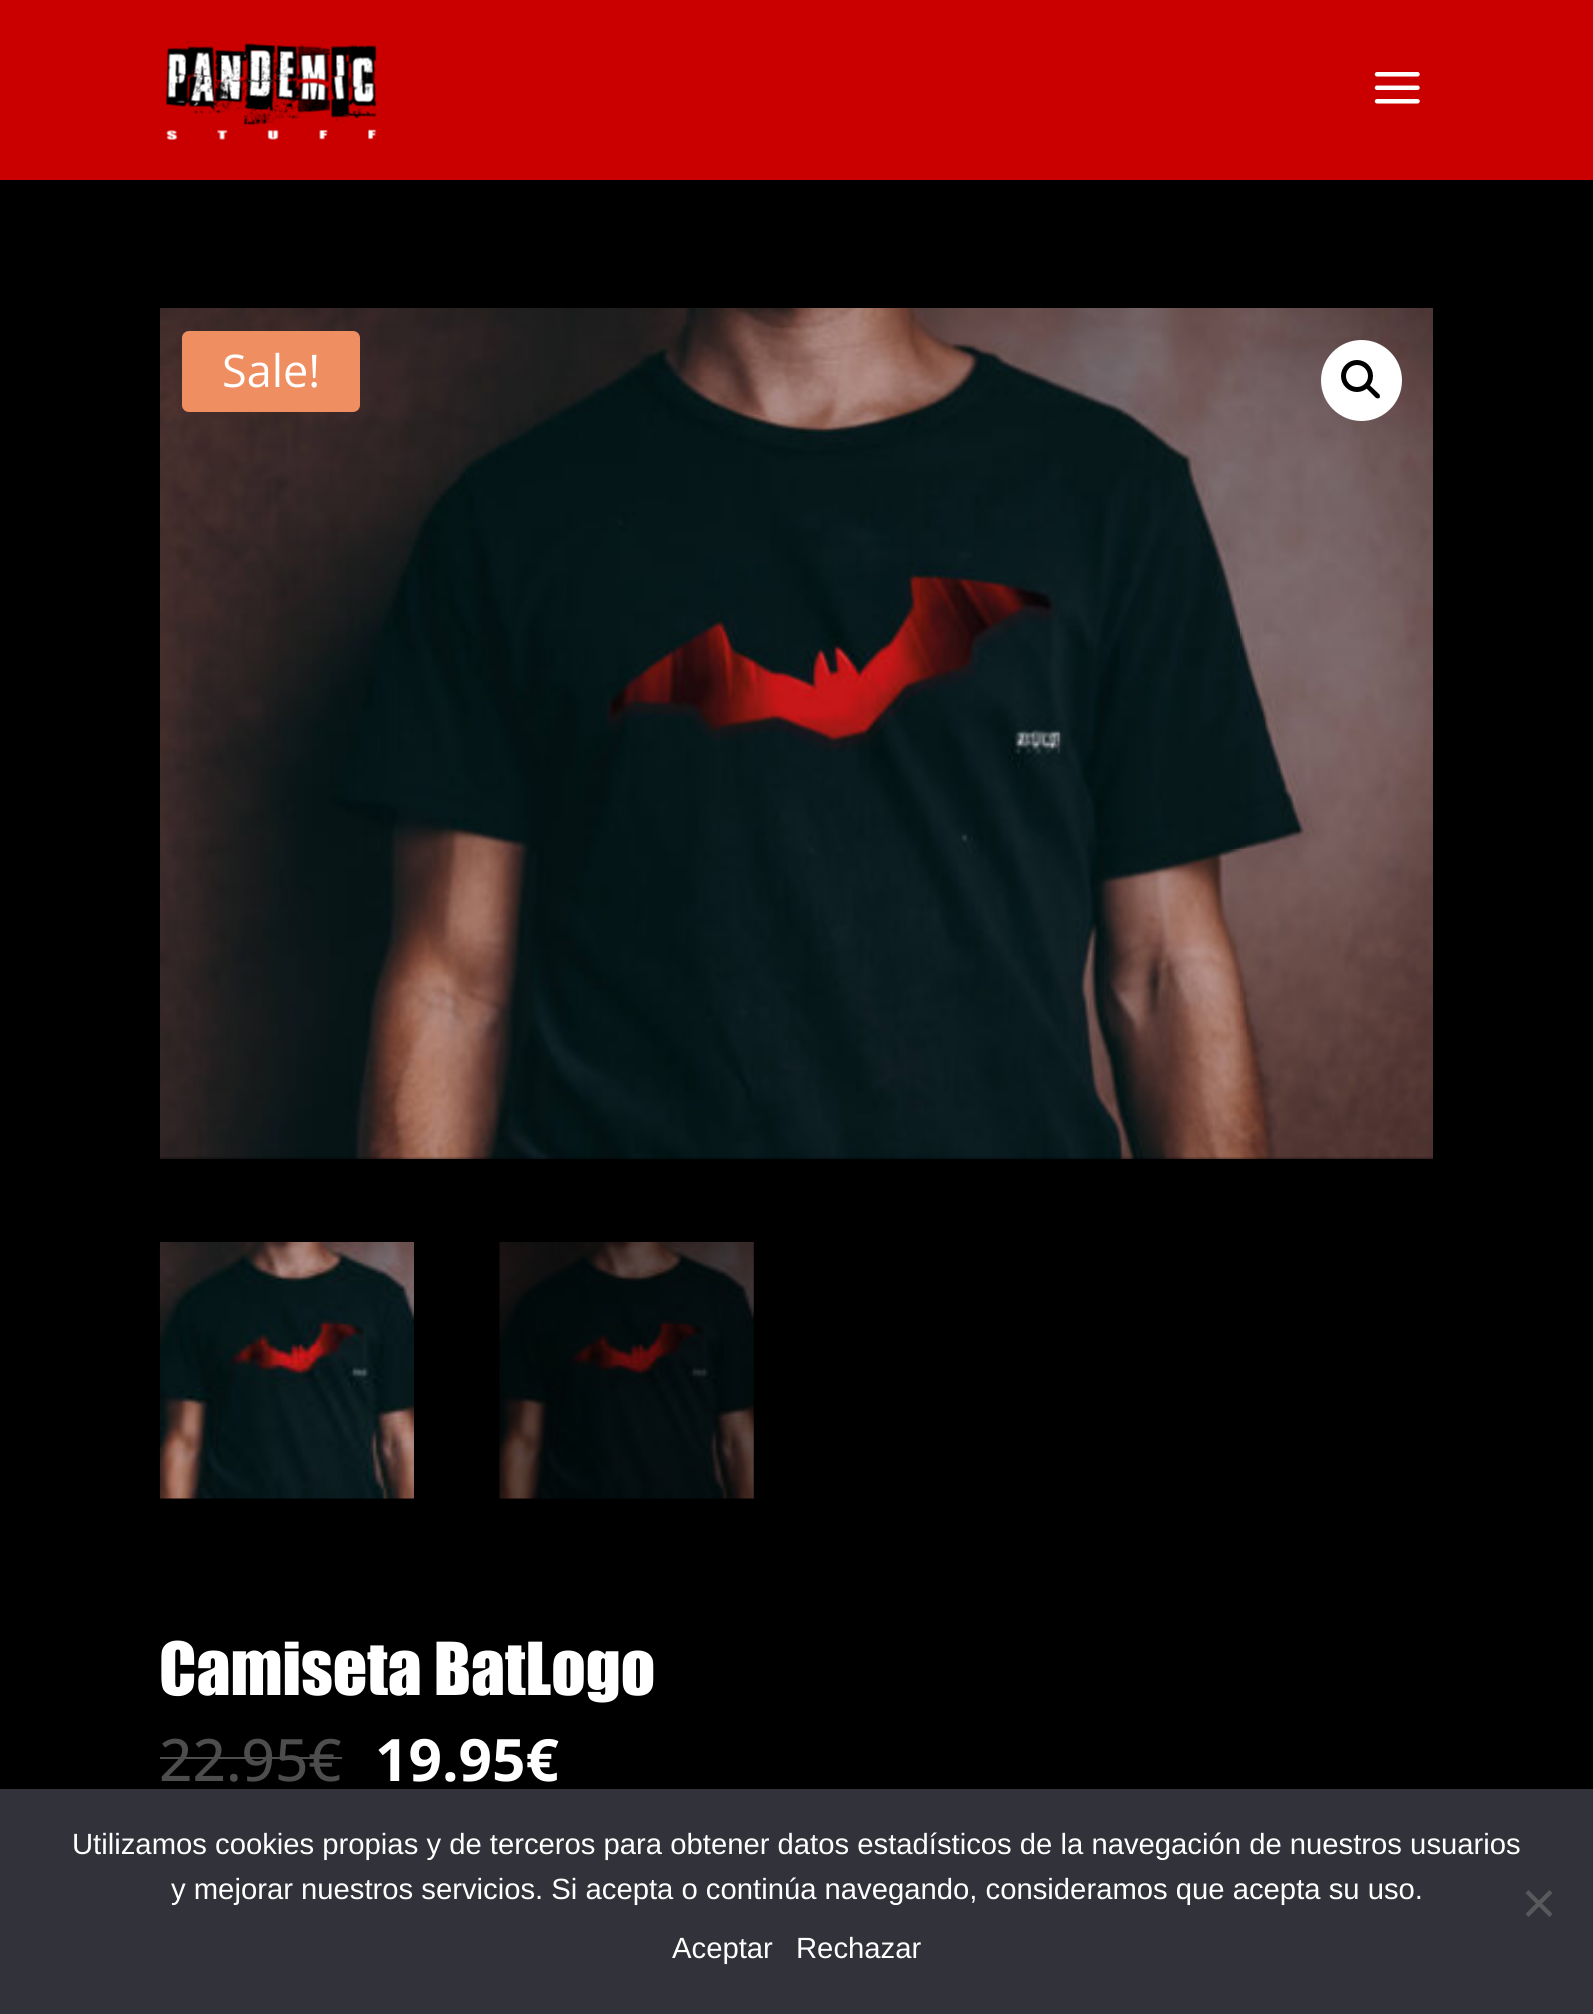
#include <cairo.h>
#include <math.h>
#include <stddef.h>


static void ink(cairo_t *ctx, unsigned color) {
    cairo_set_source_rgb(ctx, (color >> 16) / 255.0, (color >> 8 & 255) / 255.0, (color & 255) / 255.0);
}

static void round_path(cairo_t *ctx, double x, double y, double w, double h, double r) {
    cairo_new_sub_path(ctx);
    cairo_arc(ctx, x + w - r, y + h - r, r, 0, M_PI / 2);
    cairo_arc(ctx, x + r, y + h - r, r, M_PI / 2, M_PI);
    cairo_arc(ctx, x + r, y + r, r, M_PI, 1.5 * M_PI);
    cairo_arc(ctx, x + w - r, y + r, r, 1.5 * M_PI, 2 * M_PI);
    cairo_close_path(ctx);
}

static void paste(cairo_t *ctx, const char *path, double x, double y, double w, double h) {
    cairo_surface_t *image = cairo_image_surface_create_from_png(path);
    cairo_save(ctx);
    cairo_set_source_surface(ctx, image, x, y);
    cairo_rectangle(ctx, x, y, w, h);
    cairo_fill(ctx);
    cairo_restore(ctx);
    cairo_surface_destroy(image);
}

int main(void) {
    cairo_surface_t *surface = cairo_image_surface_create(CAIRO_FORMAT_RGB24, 1593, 2014);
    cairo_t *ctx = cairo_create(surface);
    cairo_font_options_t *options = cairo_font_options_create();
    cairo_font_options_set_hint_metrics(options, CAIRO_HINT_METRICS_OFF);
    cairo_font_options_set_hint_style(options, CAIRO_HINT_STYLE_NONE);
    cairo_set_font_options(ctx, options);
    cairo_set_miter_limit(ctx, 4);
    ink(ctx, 0x000000);
    cairo_paint(ctx);
    ink(ctx, 0xCA0000);
    cairo_rectangle(ctx, 0, 0, 1593, 180);
    cairo_fill(ctx);
    paste(ctx, "media/1.png", 166, 40, 211, 100);
    paste(ctx, "media/2.png", 1374, 72, 46, 32);
    paste(ctx, "media/3.png", 160, 308, 1273, 851);
    ink(ctx, 0xFFFFFF);
    cairo_arc(ctx, 1361.5, 380.5, 40.5, 0, 2 * M_PI);
    cairo_fill(ctx);
    cairo_arc(ctx, 1357, 376, 13.5, 0, 2 * M_PI);
    ink(ctx, 0x000000);
    cairo_set_line_width(ctx, 5);
    cairo_stroke(ctx);
    cairo_new_path(ctx);
    cairo_move_to(ctx, 1366.5, 385);
    cairo_curve_to(ctx, 1367.5, 384.5, 1369, 384.5, 1369.5, 385);
    cairo_line_to(ctx, 1379.5, 394.5);
    cairo_curve_to(ctx, 1380, 395.5, 1380, 397, 1379.5, 398);
    cairo_curve_to(ctx, 1378.5, 398.5, 1377, 398.5, 1376, 398);
    cairo_line_to(ctx, 1366.5, 388.5);
    cairo_curve_to(ctx, 1365.5, 387.5, 1365.5, 386, 1366.5, 385);
    cairo_close_path(ctx);
    cairo_fill(ctx);
    paste(ctx, "media/4.png", 159, 1242, 255, 257);
    paste(ctx, "media/5.png", 499, 1242, 255, 257);
    ink(ctx, 0xEF8F61);
    round_path(ctx, 182, 331, 178, 81, 7);
    cairo_fill(ctx);
    cairo_select_font_face(ctx, "Open Sans", CAIRO_FONT_SLANT_NORMAL, CAIRO_FONT_WEIGHT_NORMAL);
    cairo_set_font_size(ctx, 45);
    ink(ctx, 0xFFFFFF);
    cairo_move_to(ctx, 222, 387);
    cairo_show_text(ctx, "Sale!");
    cairo_select_font_face(ctx, "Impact", CAIRO_FONT_SLANT_NORMAL, CAIRO_FONT_WEIGHT_NORMAL);
    cairo_set_font_size(ctx, 67.5);
    cairo_move_to(ctx, 159, 1695);
    cairo_show_text(ctx, "Camiseta BatLogo");
    cairo_select_font_face(ctx, "Open Sans Medium", CAIRO_FONT_SLANT_NORMAL, CAIRO_FONT_WEIGHT_NORMAL);
    cairo_set_font_size(ctx, 58.5);
    ink(ctx, 0x4D4D4D);
    cairo_move_to(ctx, 159, 1781);
    cairo_show_text(ctx, "22.95");
    cairo_rectangle(ctx, 160, 1757, 148, 2);
    cairo_fill(ctx);
    cairo_move_to(ctx, 308, 1781);
    cairo_show_text(ctx, "€");
    cairo_rectangle(ctx, 308, 1757, 34, 2);
    cairo_fill(ctx);
    cairo_select_font_face(ctx, "Open Sans", CAIRO_FONT_SLANT_NORMAL, CAIRO_FONT_WEIGHT_BOLD);
    ink(ctx, 0xFFFFFF);
    cairo_move_to(ctx, 375, 1781);
    cairo_show_text(ctx, "19.95€");
    ink(ctx, 0x32323A);
    cairo_rectangle(ctx, 0, 1789, 1593, 225);
    cairo_fill(ctx);
    cairo_select_font_face(ctx, "Liberation Sans", CAIRO_FONT_SLANT_NORMAL, CAIRO_FONT_WEIGHT_NORMAL);
    cairo_set_font_size(ctx, 29.25);
    ink(ctx, 0xFFFFFF);
    cairo_move_to(ctx, 72, 1854);
    cairo_show_text(ctx, "Utilizamos cookies propias y de terceros para obtener datos estadísticos de la navegación de nuestros usuarios");
    cairo_move_to(ctx, 171, 1899);
    cairo_show_text(ctx, "y mejorar nuestros servicios. Si acepta o continúa navegando, consideramos que acepta su uso.");
    ink(ctx, 0x59595D);
    cairo_new_path(ctx);
    cairo_move_to(ctx, 1549.5, 1890);
    cairo_line_to(ctx, 1552.5, 1893);
    cairo_line_to(ctx, 1528.5, 1917);
    cairo_line_to(ctx, 1525.5, 1914);
    cairo_close_path(ctx);
    cairo_fill(ctx);
    cairo_new_path(ctx);
    cairo_move_to(ctx, 1525.5, 1893);
    cairo_line_to(ctx, 1528.5, 1890);
    cairo_line_to(ctx, 1552.5, 1914);
    cairo_line_to(ctx, 1549.5, 1917);
    cairo_close_path(ctx);
    cairo_fill(ctx);
    ink(ctx, 0xFFFFFF);
    cairo_move_to(ctx, 672, 1958);
    cairo_show_text(ctx, "Aceptar");
    cairo_move_to(ctx, 796, 1958);
    cairo_show_text(ctx, "Rechazar");
    cairo_surface_write_to_png(surface, "image.png");
    cairo_font_options_destroy(options);
    cairo_destroy(ctx);
    cairo_surface_destroy(surface);
    return 0;
}
